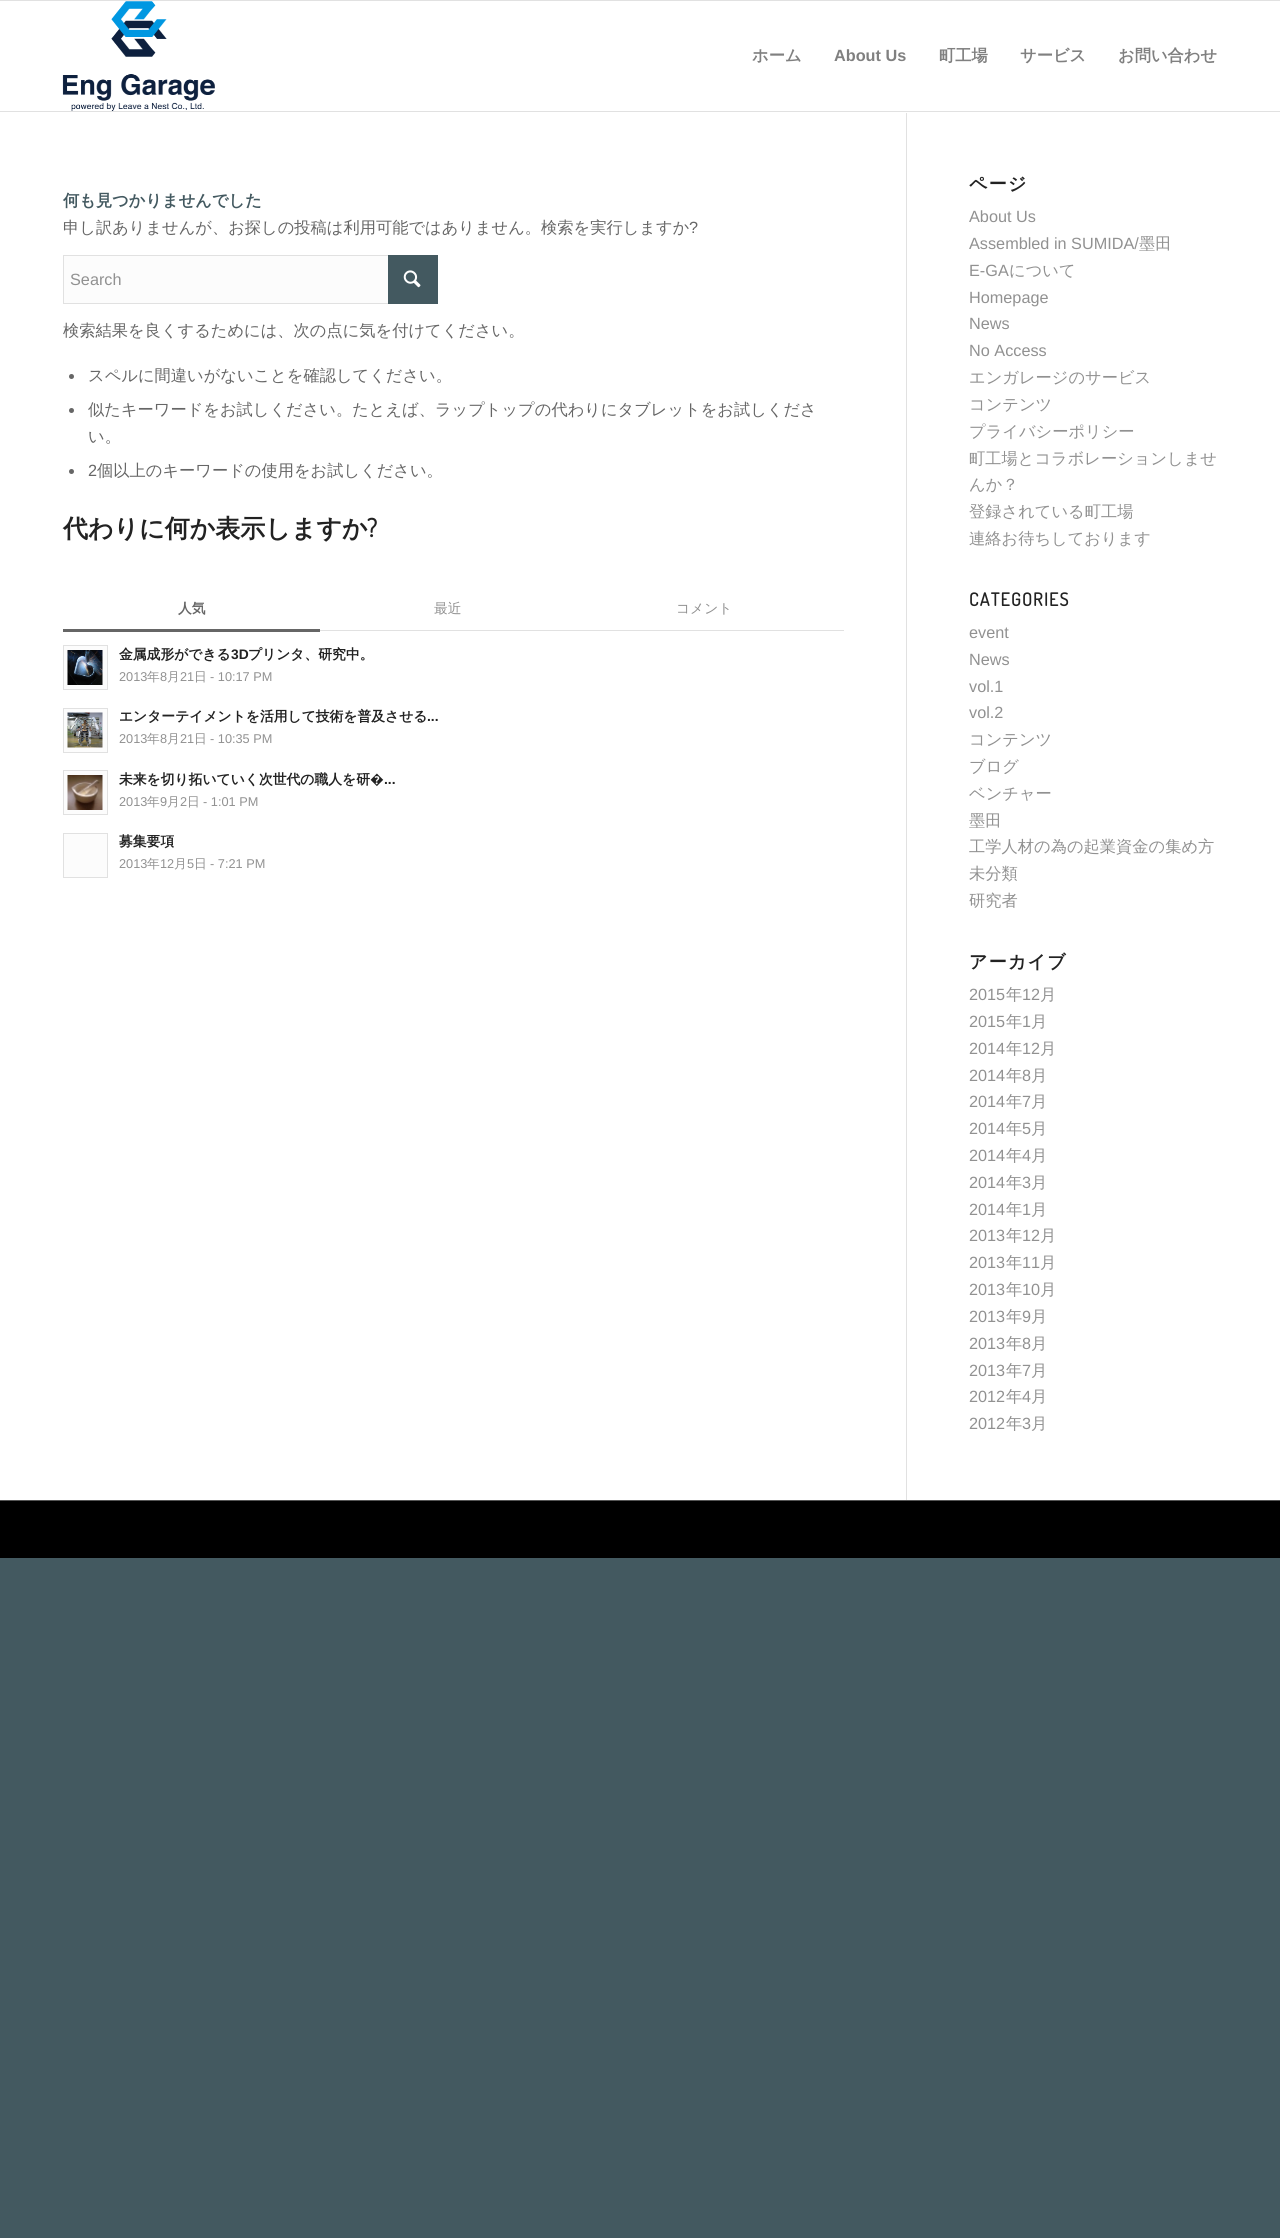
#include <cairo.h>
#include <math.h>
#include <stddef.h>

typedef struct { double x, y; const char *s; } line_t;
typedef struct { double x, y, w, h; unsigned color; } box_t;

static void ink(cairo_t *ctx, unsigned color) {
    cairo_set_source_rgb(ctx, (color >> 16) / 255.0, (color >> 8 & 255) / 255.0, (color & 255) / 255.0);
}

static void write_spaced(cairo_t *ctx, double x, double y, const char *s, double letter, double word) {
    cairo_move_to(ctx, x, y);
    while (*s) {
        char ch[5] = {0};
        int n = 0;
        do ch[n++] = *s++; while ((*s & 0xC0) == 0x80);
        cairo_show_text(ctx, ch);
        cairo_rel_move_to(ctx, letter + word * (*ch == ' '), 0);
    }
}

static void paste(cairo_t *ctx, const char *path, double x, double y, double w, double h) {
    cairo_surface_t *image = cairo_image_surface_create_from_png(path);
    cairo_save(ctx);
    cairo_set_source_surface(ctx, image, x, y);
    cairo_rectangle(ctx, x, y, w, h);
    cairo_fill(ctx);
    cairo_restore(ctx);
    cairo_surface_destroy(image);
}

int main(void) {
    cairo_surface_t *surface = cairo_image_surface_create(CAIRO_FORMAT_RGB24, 1280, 2238);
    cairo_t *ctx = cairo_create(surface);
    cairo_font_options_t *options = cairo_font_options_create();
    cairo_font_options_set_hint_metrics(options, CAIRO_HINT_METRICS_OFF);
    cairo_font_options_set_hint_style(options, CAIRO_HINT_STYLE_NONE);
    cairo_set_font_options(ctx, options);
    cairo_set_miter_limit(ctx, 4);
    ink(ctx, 0x435960);
    cairo_paint(ctx);
    {
        static const box_t items[] = {
            {0, 0, 1280, 1, 0xE1E1E1},
            {0, 1, 1280, 1499, 0xFFFFFF},
            {906, 111, 1, 1389, 0xE1E1E1},
            {906, 111, 1, 2, 0xFEFEFE},
            {0, 111, 1280, 1, 0xE1E1E1},
        };
        for (size_t i = 0; i < sizeof items / sizeof *items; i++) {
            ink(ctx, items[i].color);
            cairo_rectangle(ctx, items[i].x, items[i].y, items[i].w, items[i].h);
            cairo_fill(ctx);
        }
    }
    paste(ctx, "media/1.png", 62, 1, 153, 110);
    cairo_select_font_face(ctx, "WenQuanYi Zen Hei", CAIRO_FONT_SLANT_NORMAL, CAIRO_FONT_WEIGHT_BOLD);
    cairo_set_font_size(ctx, 16.25);
    ink(ctx, 0x808080);
    cairo_move_to(ctx, 752, 61);
    cairo_show_text(ctx, "ホーム");
    cairo_select_font_face(ctx, "Liberation Sans", CAIRO_FONT_SLANT_NORMAL, CAIRO_FONT_WEIGHT_BOLD);
    cairo_move_to(ctx, 834, 61);
    cairo_show_text(ctx, "About Us");
    cairo_select_font_face(ctx, "WenQuanYi Zen Hei", CAIRO_FONT_SLANT_NORMAL, CAIRO_FONT_WEIGHT_BOLD);
    {
        static const line_t items[] = {
            {939, 61, "町工場"},
            {1020, 61, "サービス"},
            {1118, 61, "お問い合わせ"},
        };
        for (size_t i = 0; i < sizeof items / sizeof *items; i++) {
            cairo_move_to(ctx, items[i].x, items[i].y);
            cairo_show_text(ctx, items[i].s);
        }
    }
    ink(ctx, 0x435960);
    cairo_move_to(ctx, 63, 206);
    cairo_show_text(ctx, "何も見つかりませんでした");
    cairo_select_font_face(ctx, "WenQuanYi Zen Hei Medium", CAIRO_FONT_SLANT_NORMAL, CAIRO_FONT_WEIGHT_NORMAL);
    ink(ctx, 0x666666);
    cairo_move_to(ctx, 63, 233);
    cairo_show_text(ctx, "申し訳ありませんが、お探しの投稿は利用可能ではありません。検索を実行しますか");
    cairo_select_font_face(ctx, "Liberation Sans", CAIRO_FONT_SLANT_NORMAL, CAIRO_FONT_WEIGHT_NORMAL);
    cairo_move_to(ctx, 689, 233);
    cairo_show_text(ctx, "?");
    ink(ctx, 0xFCFCFC);
    cairo_rectangle(ctx, 64, 256, 324, 47);
    cairo_fill(ctx);
    cairo_rectangle(ctx, 63.5, 255.5, 374, 48);
    ink(ctx, 0xE1E1E1);
    cairo_set_line_width(ctx, 1);
    cairo_stroke(ctx);
    ink(ctx, 0x919191);
    cairo_move_to(ctx, 70, 285);
    cairo_show_text(ctx, "Search");
    ink(ctx, 0x435960);
    cairo_rectangle(ctx, 388, 255, 50, 49);
    cairo_fill(ctx);
    paste(ctx, "media/2.png", 403, 270, 18, 18);
    cairo_select_font_face(ctx, "WenQuanYi Zen Hei Medium", CAIRO_FONT_SLANT_NORMAL, CAIRO_FONT_WEIGHT_NORMAL);
    ink(ctx, 0x666666);
    cairo_move_to(ctx, 63, 336);
    cairo_show_text(ctx, "検索結果を良くするためには、次の点に気を付けてください。");
    cairo_new_path(ctx);
    cairo_arc(ctx, 71.5, 376.5, 2.5, 0, 2 * M_PI);
    cairo_fill(ctx);
    cairo_move_to(ctx, 88, 381);
    cairo_show_text(ctx, "スペルに間違いがないことを確認してください。");
    cairo_new_path(ctx);
    cairo_arc(ctx, 71.5, 410.5, 2.5, 0, 2 * M_PI);
    cairo_fill(ctx);
    cairo_move_to(ctx, 88, 415);
    cairo_show_text(ctx, "似たキーワードをお試しください。たとえば、ラップトップの代わりにタブレットをお試しくださ");
    cairo_move_to(ctx, 88, 442);
    cairo_show_text(ctx, "い。");
    cairo_new_path(ctx);
    cairo_arc(ctx, 71.5, 471.5, 2.5, 0, 2 * M_PI);
    cairo_fill(ctx);
    cairo_select_font_face(ctx, "Liberation Sans", CAIRO_FONT_SLANT_NORMAL, CAIRO_FONT_WEIGHT_NORMAL);
    cairo_move_to(ctx, 88, 476);
    cairo_show_text(ctx, "2");
    cairo_select_font_face(ctx, "WenQuanYi Zen Hei Medium", CAIRO_FONT_SLANT_NORMAL, CAIRO_FONT_WEIGHT_NORMAL);
    cairo_move_to(ctx, 97, 476);
    cairo_show_text(ctx, "個以上のキーワードの使用をお試しください。");
    cairo_select_font_face(ctx, "WenQuanYi Zen Hei", CAIRO_FONT_SLANT_NORMAL, CAIRO_FONT_WEIGHT_BOLD);
    cairo_set_font_size(ctx, 25);
    ink(ctx, 0x222222);
    cairo_move_to(ctx, 63, 537);
    cairo_show_text(ctx, "代わりに何か表示しますか");
    cairo_select_font_face(ctx, "Dosis", CAIRO_FONT_SLANT_NORMAL, CAIRO_FONT_WEIGHT_BOLD);
    cairo_move_to(ctx, 367, 537);
    cairo_show_text(ctx, "?");
    ink(ctx, 0xE1E1E1);
    cairo_rectangle(ctx, 320, 630, 524, 1);
    cairo_fill(ctx);
    ink(ctx, 0x666666);
    cairo_rectangle(ctx, 63, 629, 257, 3);
    cairo_fill(ctx);
    cairo_select_font_face(ctx, "WenQuanYi Zen Hei", CAIRO_FONT_SLANT_NORMAL, CAIRO_FONT_WEIGHT_BOLD);
    cairo_set_font_size(ctx, 13.75);
    cairo_move_to(ctx, 178, 613);
    cairo_show_text(ctx, "人気");
    cairo_select_font_face(ctx, "WenQuanYi Zen Hei Medium", CAIRO_FONT_SLANT_NORMAL, CAIRO_FONT_WEIGHT_NORMAL);
    ink(ctx, 0x919191);
    cairo_move_to(ctx, 434, 613);
    cairo_show_text(ctx, "最近");
    cairo_move_to(ctx, 676, 613);
    cairo_show_text(ctx, "コメント");
    ink(ctx, 0xFCFCFC);
    cairo_rectangle(ctx, 63.5, 645.5, 44, 44);
    cairo_fill_preserve(ctx);
    ink(ctx, 0xE1E1E1);
    cairo_stroke(ctx);
    paste(ctx, "media/3.png", 67, 650, 36, 35);
    cairo_select_font_face(ctx, "WenQuanYi Zen Hei", CAIRO_FONT_SLANT_NORMAL, CAIRO_FONT_WEIGHT_BOLD);
    cairo_set_font_size(ctx, 13.8);
    ink(ctx, 0x222222);
    cairo_move_to(ctx, 119, 659);
    cairo_show_text(ctx, "金属成形ができる");
    cairo_select_font_face(ctx, "Liberation Sans", CAIRO_FONT_SLANT_NORMAL, CAIRO_FONT_WEIGHT_BOLD);
    cairo_move_to(ctx, 231, 659);
    cairo_show_text(ctx, "3D");
    cairo_select_font_face(ctx, "WenQuanYi Zen Hei", CAIRO_FONT_SLANT_NORMAL, CAIRO_FONT_WEIGHT_BOLD);
    cairo_move_to(ctx, 248, 659);
    cairo_show_text(ctx, "プリンタ、研究中。");
    cairo_select_font_face(ctx, "Liberation Sans", CAIRO_FONT_SLANT_NORMAL, CAIRO_FONT_WEIGHT_NORMAL);
    cairo_set_font_size(ctx, 12.75);
    ink(ctx, 0x919191);
    cairo_move_to(ctx, 119, 681);
    cairo_show_text(ctx, "2013");
    cairo_select_font_face(ctx, "WenQuanYi Zen Hei Medium", CAIRO_FONT_SLANT_NORMAL, CAIRO_FONT_WEIGHT_NORMAL);
    cairo_move_to(ctx, 147, 681);
    cairo_show_text(ctx, "年");
    cairo_select_font_face(ctx, "Liberation Sans", CAIRO_FONT_SLANT_NORMAL, CAIRO_FONT_WEIGHT_NORMAL);
    cairo_move_to(ctx, 160, 681);
    cairo_show_text(ctx, "8");
    cairo_select_font_face(ctx, "WenQuanYi Zen Hei Medium", CAIRO_FONT_SLANT_NORMAL, CAIRO_FONT_WEIGHT_NORMAL);
    cairo_move_to(ctx, 167, 681);
    cairo_show_text(ctx, "月");
    cairo_select_font_face(ctx, "Liberation Sans", CAIRO_FONT_SLANT_NORMAL, CAIRO_FONT_WEIGHT_NORMAL);
    cairo_move_to(ctx, 180, 681);
    cairo_show_text(ctx, "21");
    cairo_select_font_face(ctx, "WenQuanYi Zen Hei Medium", CAIRO_FONT_SLANT_NORMAL, CAIRO_FONT_WEIGHT_NORMAL);
    cairo_move_to(ctx, 194, 681);
    cairo_show_text(ctx, "日");
    cairo_select_font_face(ctx, "Liberation Sans", CAIRO_FONT_SLANT_NORMAL, CAIRO_FONT_WEIGHT_NORMAL);
    cairo_move_to(ctx, 210, 681);
    cairo_show_text(ctx, "- 10:17 PM");
    ink(ctx, 0xFCFCFC);
    cairo_rectangle(ctx, 63.5, 708.5, 44, 44);
    cairo_fill_preserve(ctx);
    ink(ctx, 0xE1E1E1);
    cairo_stroke(ctx);
    paste(ctx, "media/4.png", 67, 712, 36, 36);
    cairo_select_font_face(ctx, "WenQuanYi Zen Hei", CAIRO_FONT_SLANT_NORMAL, CAIRO_FONT_WEIGHT_BOLD);
    cairo_set_font_size(ctx, 13.8);
    ink(ctx, 0x222222);
    cairo_move_to(ctx, 119, 721);
    cairo_show_text(ctx, "エンターテイメントを活用して技術を普及させる");
    cairo_select_font_face(ctx, "Liberation Sans", CAIRO_FONT_SLANT_NORMAL, CAIRO_FONT_WEIGHT_BOLD);
    cairo_move_to(ctx, 427, 721);
    cairo_show_text(ctx, "...");
    cairo_select_font_face(ctx, "Liberation Sans", CAIRO_FONT_SLANT_NORMAL, CAIRO_FONT_WEIGHT_NORMAL);
    cairo_set_font_size(ctx, 12.75);
    ink(ctx, 0x919191);
    cairo_move_to(ctx, 119, 743);
    cairo_show_text(ctx, "2013");
    cairo_select_font_face(ctx, "WenQuanYi Zen Hei Medium", CAIRO_FONT_SLANT_NORMAL, CAIRO_FONT_WEIGHT_NORMAL);
    cairo_move_to(ctx, 147, 743);
    cairo_show_text(ctx, "年");
    cairo_select_font_face(ctx, "Liberation Sans", CAIRO_FONT_SLANT_NORMAL, CAIRO_FONT_WEIGHT_NORMAL);
    cairo_move_to(ctx, 160, 743);
    cairo_show_text(ctx, "8");
    cairo_select_font_face(ctx, "WenQuanYi Zen Hei Medium", CAIRO_FONT_SLANT_NORMAL, CAIRO_FONT_WEIGHT_NORMAL);
    cairo_move_to(ctx, 167, 743);
    cairo_show_text(ctx, "月");
    cairo_select_font_face(ctx, "Liberation Sans", CAIRO_FONT_SLANT_NORMAL, CAIRO_FONT_WEIGHT_NORMAL);
    cairo_move_to(ctx, 180, 743);
    cairo_show_text(ctx, "21");
    cairo_select_font_face(ctx, "WenQuanYi Zen Hei Medium", CAIRO_FONT_SLANT_NORMAL, CAIRO_FONT_WEIGHT_NORMAL);
    cairo_move_to(ctx, 194, 743);
    cairo_show_text(ctx, "日");
    cairo_select_font_face(ctx, "Liberation Sans", CAIRO_FONT_SLANT_NORMAL, CAIRO_FONT_WEIGHT_NORMAL);
    cairo_move_to(ctx, 210, 743);
    cairo_show_text(ctx, "- 10:35 PM");
    ink(ctx, 0xFCFCFC);
    cairo_rectangle(ctx, 63.5, 770.5, 44, 44);
    cairo_fill_preserve(ctx);
    ink(ctx, 0xE1E1E1);
    cairo_stroke(ctx);
    paste(ctx, "media/5.png", 67, 775, 36, 35);
    cairo_select_font_face(ctx, "WenQuanYi Zen Hei", CAIRO_FONT_SLANT_NORMAL, CAIRO_FONT_WEIGHT_BOLD);
    cairo_set_font_size(ctx, 13.8);
    ink(ctx, 0x222222);
    cairo_move_to(ctx, 119, 784);
    cairo_show_text(ctx, "未来を切り拓いていく次世代の職人を研");
    cairo_select_font_face(ctx, "Noto Sans", CAIRO_FONT_SLANT_NORMAL, CAIRO_FONT_WEIGHT_BOLD);
    cairo_move_to(ctx, 370, 784);
    cairo_show_text(ctx, "�");
    cairo_select_font_face(ctx, "Liberation Sans", CAIRO_FONT_SLANT_NORMAL, CAIRO_FONT_WEIGHT_BOLD);
    cairo_move_to(ctx, 384, 784);
    cairo_show_text(ctx, "...");
    cairo_select_font_face(ctx, "Liberation Sans", CAIRO_FONT_SLANT_NORMAL, CAIRO_FONT_WEIGHT_NORMAL);
    cairo_set_font_size(ctx, 12.75);
    ink(ctx, 0x919191);
    cairo_move_to(ctx, 119, 806);
    cairo_show_text(ctx, "2013");
    cairo_select_font_face(ctx, "WenQuanYi Zen Hei Medium", CAIRO_FONT_SLANT_NORMAL, CAIRO_FONT_WEIGHT_NORMAL);
    cairo_move_to(ctx, 147, 806);
    cairo_show_text(ctx, "年");
    cairo_select_font_face(ctx, "Liberation Sans", CAIRO_FONT_SLANT_NORMAL, CAIRO_FONT_WEIGHT_NORMAL);
    cairo_move_to(ctx, 160, 806);
    cairo_show_text(ctx, "9");
    cairo_select_font_face(ctx, "WenQuanYi Zen Hei Medium", CAIRO_FONT_SLANT_NORMAL, CAIRO_FONT_WEIGHT_NORMAL);
    cairo_move_to(ctx, 167, 806);
    cairo_show_text(ctx, "月");
    cairo_select_font_face(ctx, "Liberation Sans", CAIRO_FONT_SLANT_NORMAL, CAIRO_FONT_WEIGHT_NORMAL);
    cairo_move_to(ctx, 180, 806);
    cairo_show_text(ctx, "2");
    cairo_select_font_face(ctx, "WenQuanYi Zen Hei Medium", CAIRO_FONT_SLANT_NORMAL, CAIRO_FONT_WEIGHT_NORMAL);
    cairo_move_to(ctx, 187, 806);
    cairo_show_text(ctx, "日");
    cairo_select_font_face(ctx, "Liberation Sans", CAIRO_FONT_SLANT_NORMAL, CAIRO_FONT_WEIGHT_NORMAL);
    cairo_move_to(ctx, 203, 806);
    cairo_show_text(ctx, "- 1:01 PM");
    ink(ctx, 0xFCFCFC);
    cairo_rectangle(ctx, 63.5, 833.5, 44, 44);
    cairo_fill_preserve(ctx);
    ink(ctx, 0xE1E1E1);
    cairo_stroke(ctx);
    cairo_select_font_face(ctx, "WenQuanYi Zen Hei", CAIRO_FONT_SLANT_NORMAL, CAIRO_FONT_WEIGHT_BOLD);
    cairo_set_font_size(ctx, 13.8);
    ink(ctx, 0x222222);
    cairo_move_to(ctx, 119, 846);
    cairo_show_text(ctx, "募集要項");
    cairo_select_font_face(ctx, "Liberation Sans", CAIRO_FONT_SLANT_NORMAL, CAIRO_FONT_WEIGHT_NORMAL);
    cairo_set_font_size(ctx, 12.75);
    ink(ctx, 0x919191);
    cairo_move_to(ctx, 119, 868);
    cairo_show_text(ctx, "2013");
    cairo_select_font_face(ctx, "WenQuanYi Zen Hei Medium", CAIRO_FONT_SLANT_NORMAL, CAIRO_FONT_WEIGHT_NORMAL);
    cairo_move_to(ctx, 147, 868);
    cairo_show_text(ctx, "年");
    cairo_select_font_face(ctx, "Liberation Sans", CAIRO_FONT_SLANT_NORMAL, CAIRO_FONT_WEIGHT_NORMAL);
    cairo_move_to(ctx, 160, 868);
    cairo_show_text(ctx, "12");
    cairo_select_font_face(ctx, "WenQuanYi Zen Hei Medium", CAIRO_FONT_SLANT_NORMAL, CAIRO_FONT_WEIGHT_NORMAL);
    cairo_move_to(ctx, 174, 868);
    cairo_show_text(ctx, "月");
    cairo_select_font_face(ctx, "Liberation Sans", CAIRO_FONT_SLANT_NORMAL, CAIRO_FONT_WEIGHT_NORMAL);
    cairo_move_to(ctx, 187, 868);
    cairo_show_text(ctx, "5");
    cairo_select_font_face(ctx, "WenQuanYi Zen Hei Medium", CAIRO_FONT_SLANT_NORMAL, CAIRO_FONT_WEIGHT_NORMAL);
    cairo_move_to(ctx, 194, 868);
    cairo_show_text(ctx, "日");
    cairo_select_font_face(ctx, "Liberation Sans", CAIRO_FONT_SLANT_NORMAL, CAIRO_FONT_WEIGHT_NORMAL);
    cairo_move_to(ctx, 210, 868);
    cairo_show_text(ctx, "- 7:21 PM");
    cairo_select_font_face(ctx, "WenQuanYi Zen Hei", CAIRO_FONT_SLANT_NORMAL, CAIRO_FONT_WEIGHT_BOLD);
    cairo_set_font_size(ctx, 18);
    ink(ctx, 0x222222);
    write_spaced(ctx, 969, 190, "ページ", 1.25, 0);
    cairo_select_font_face(ctx, "Liberation Sans", CAIRO_FONT_SLANT_NORMAL, CAIRO_FONT_WEIGHT_NORMAL);
    cairo_set_font_size(ctx, 16.25);
    ink(ctx, 0x919191);
    cairo_move_to(ctx, 969, 222);
    cairo_show_text(ctx, "About Us");
    cairo_move_to(ctx, 969, 249);
    cairo_show_text(ctx, "Assembled in SUMIDA/");
    cairo_select_font_face(ctx, "WenQuanYi Zen Hei Medium", CAIRO_FONT_SLANT_NORMAL, CAIRO_FONT_WEIGHT_NORMAL);
    cairo_move_to(ctx, 1139, 249);
    cairo_show_text(ctx, "墨田");
    cairo_select_font_face(ctx, "Liberation Sans", CAIRO_FONT_SLANT_NORMAL, CAIRO_FONT_WEIGHT_NORMAL);
    cairo_move_to(ctx, 969, 276);
    cairo_show_text(ctx, "E-GA");
    cairo_select_font_face(ctx, "WenQuanYi Zen Hei Medium", CAIRO_FONT_SLANT_NORMAL, CAIRO_FONT_WEIGHT_NORMAL);
    cairo_move_to(ctx, 1009, 276);
    cairo_show_text(ctx, "について");
    cairo_select_font_face(ctx, "Liberation Sans", CAIRO_FONT_SLANT_NORMAL, CAIRO_FONT_WEIGHT_NORMAL);
    {
        static const line_t items[] = {
            {969, 303, "Homepage"},
            {969, 329, "News"},
            {969, 356, "No Access"},
        };
        for (size_t i = 0; i < sizeof items / sizeof *items; i++) {
            cairo_move_to(ctx, items[i].x, items[i].y);
            cairo_show_text(ctx, items[i].s);
        }
    }
    cairo_select_font_face(ctx, "WenQuanYi Zen Hei Medium", CAIRO_FONT_SLANT_NORMAL, CAIRO_FONT_WEIGHT_NORMAL);
    {
        static const line_t items[] = {
            {969, 383, "エンガレージのサービス"},
            {969, 410, "コンテンツ"},
            {969, 437, "プライバシーポリシー"},
            {969, 464, "町工場とコラボレーションしませ"},
            {969, 490, "んか？"},
            {969, 517, "登録されている町工場"},
            {969, 544, "連絡お待ちしております"},
        };
        for (size_t i = 0; i < sizeof items / sizeof *items; i++) {
            cairo_move_to(ctx, items[i].x, items[i].y);
            cairo_show_text(ctx, items[i].s);
        }
    }
    cairo_select_font_face(ctx, "Dosis", CAIRO_FONT_SLANT_NORMAL, CAIRO_FONT_WEIGHT_BOLD);
    cairo_set_font_size(ctx, 18);
    ink(ctx, 0x222222);
    write_spaced(ctx, 969, 606, "CATEGORIES", 1.25, 0);
    cairo_select_font_face(ctx, "Liberation Sans", CAIRO_FONT_SLANT_NORMAL, CAIRO_FONT_WEIGHT_NORMAL);
    cairo_set_font_size(ctx, 16.25);
    ink(ctx, 0x919191);
    {
        static const line_t items[] = {
            {969, 638, "event"},
            {969, 665, "News"},
            {969, 692, "vol.1"},
            {969, 718, "vol.2"},
        };
        for (size_t i = 0; i < sizeof items / sizeof *items; i++) {
            cairo_move_to(ctx, items[i].x, items[i].y);
            cairo_show_text(ctx, items[i].s);
        }
    }
    cairo_select_font_face(ctx, "WenQuanYi Zen Hei Medium", CAIRO_FONT_SLANT_NORMAL, CAIRO_FONT_WEIGHT_NORMAL);
    {
        static const line_t items[] = {
            {969, 745, "コンテンツ"},
            {969, 772, "ブログ"},
            {969, 799, "ベンチャー"},
            {969, 826, "墨田"},
            {969, 852, "工学人材の為の起業資金の集め方"},
            {969, 879, "未分類"},
            {969, 906, "研究者"},
        };
        for (size_t i = 0; i < sizeof items / sizeof *items; i++) {
            cairo_move_to(ctx, items[i].x, items[i].y);
            cairo_show_text(ctx, items[i].s);
        }
    }
    cairo_select_font_face(ctx, "WenQuanYi Zen Hei", CAIRO_FONT_SLANT_NORMAL, CAIRO_FONT_WEIGHT_BOLD);
    cairo_set_font_size(ctx, 18);
    ink(ctx, 0x222222);
    write_spaced(ctx, 969, 968, "アーカイブ", 1.25, 0);
    cairo_select_font_face(ctx, "Liberation Sans", CAIRO_FONT_SLANT_NORMAL, CAIRO_FONT_WEIGHT_NORMAL);
    cairo_set_font_size(ctx, 16.25);
    ink(ctx, 0x919191);
    cairo_move_to(ctx, 969, 1000);
    cairo_show_text(ctx, "2015");
    cairo_select_font_face(ctx, "WenQuanYi Zen Hei Medium", CAIRO_FONT_SLANT_NORMAL, CAIRO_FONT_WEIGHT_NORMAL);
    cairo_move_to(ctx, 1006, 1000);
    cairo_show_text(ctx, "年");
    cairo_select_font_face(ctx, "Liberation Sans", CAIRO_FONT_SLANT_NORMAL, CAIRO_FONT_WEIGHT_NORMAL);
    cairo_move_to(ctx, 1022, 1000);
    cairo_show_text(ctx, "12");
    cairo_select_font_face(ctx, "WenQuanYi Zen Hei Medium", CAIRO_FONT_SLANT_NORMAL, CAIRO_FONT_WEIGHT_NORMAL);
    cairo_move_to(ctx, 1040, 1000);
    cairo_show_text(ctx, "月");
    cairo_select_font_face(ctx, "Liberation Sans", CAIRO_FONT_SLANT_NORMAL, CAIRO_FONT_WEIGHT_NORMAL);
    cairo_move_to(ctx, 969, 1027);
    cairo_show_text(ctx, "2015");
    cairo_select_font_face(ctx, "WenQuanYi Zen Hei Medium", CAIRO_FONT_SLANT_NORMAL, CAIRO_FONT_WEIGHT_NORMAL);
    cairo_move_to(ctx, 1006, 1027);
    cairo_show_text(ctx, "年");
    cairo_select_font_face(ctx, "Liberation Sans", CAIRO_FONT_SLANT_NORMAL, CAIRO_FONT_WEIGHT_NORMAL);
    cairo_move_to(ctx, 1022, 1027);
    cairo_show_text(ctx, "1");
    cairo_select_font_face(ctx, "WenQuanYi Zen Hei Medium", CAIRO_FONT_SLANT_NORMAL, CAIRO_FONT_WEIGHT_NORMAL);
    cairo_move_to(ctx, 1031, 1027);
    cairo_show_text(ctx, "月");
    cairo_select_font_face(ctx, "Liberation Sans", CAIRO_FONT_SLANT_NORMAL, CAIRO_FONT_WEIGHT_NORMAL);
    cairo_move_to(ctx, 969, 1054);
    cairo_show_text(ctx, "2014");
    cairo_select_font_face(ctx, "WenQuanYi Zen Hei Medium", CAIRO_FONT_SLANT_NORMAL, CAIRO_FONT_WEIGHT_NORMAL);
    cairo_move_to(ctx, 1006, 1054);
    cairo_show_text(ctx, "年");
    cairo_select_font_face(ctx, "Liberation Sans", CAIRO_FONT_SLANT_NORMAL, CAIRO_FONT_WEIGHT_NORMAL);
    cairo_move_to(ctx, 1022, 1054);
    cairo_show_text(ctx, "12");
    cairo_select_font_face(ctx, "WenQuanYi Zen Hei Medium", CAIRO_FONT_SLANT_NORMAL, CAIRO_FONT_WEIGHT_NORMAL);
    cairo_move_to(ctx, 1040, 1054);
    cairo_show_text(ctx, "月");
    cairo_select_font_face(ctx, "Liberation Sans", CAIRO_FONT_SLANT_NORMAL, CAIRO_FONT_WEIGHT_NORMAL);
    cairo_move_to(ctx, 969, 1081);
    cairo_show_text(ctx, "2014");
    cairo_select_font_face(ctx, "WenQuanYi Zen Hei Medium", CAIRO_FONT_SLANT_NORMAL, CAIRO_FONT_WEIGHT_NORMAL);
    cairo_move_to(ctx, 1006, 1081);
    cairo_show_text(ctx, "年");
    cairo_select_font_face(ctx, "Liberation Sans", CAIRO_FONT_SLANT_NORMAL, CAIRO_FONT_WEIGHT_NORMAL);
    cairo_move_to(ctx, 1022, 1081);
    cairo_show_text(ctx, "8");
    cairo_select_font_face(ctx, "WenQuanYi Zen Hei Medium", CAIRO_FONT_SLANT_NORMAL, CAIRO_FONT_WEIGHT_NORMAL);
    cairo_move_to(ctx, 1031, 1081);
    cairo_show_text(ctx, "月");
    cairo_select_font_face(ctx, "Liberation Sans", CAIRO_FONT_SLANT_NORMAL, CAIRO_FONT_WEIGHT_NORMAL);
    cairo_move_to(ctx, 969, 1107);
    cairo_show_text(ctx, "2014");
    cairo_select_font_face(ctx, "WenQuanYi Zen Hei Medium", CAIRO_FONT_SLANT_NORMAL, CAIRO_FONT_WEIGHT_NORMAL);
    cairo_move_to(ctx, 1006, 1107);
    cairo_show_text(ctx, "年");
    cairo_select_font_face(ctx, "Liberation Sans", CAIRO_FONT_SLANT_NORMAL, CAIRO_FONT_WEIGHT_NORMAL);
    cairo_move_to(ctx, 1022, 1107);
    cairo_show_text(ctx, "7");
    cairo_select_font_face(ctx, "WenQuanYi Zen Hei Medium", CAIRO_FONT_SLANT_NORMAL, CAIRO_FONT_WEIGHT_NORMAL);
    cairo_move_to(ctx, 1031, 1107);
    cairo_show_text(ctx, "月");
    cairo_select_font_face(ctx, "Liberation Sans", CAIRO_FONT_SLANT_NORMAL, CAIRO_FONT_WEIGHT_NORMAL);
    cairo_move_to(ctx, 969, 1134);
    cairo_show_text(ctx, "2014");
    cairo_select_font_face(ctx, "WenQuanYi Zen Hei Medium", CAIRO_FONT_SLANT_NORMAL, CAIRO_FONT_WEIGHT_NORMAL);
    cairo_move_to(ctx, 1006, 1134);
    cairo_show_text(ctx, "年");
    cairo_select_font_face(ctx, "Liberation Sans", CAIRO_FONT_SLANT_NORMAL, CAIRO_FONT_WEIGHT_NORMAL);
    cairo_move_to(ctx, 1022, 1134);
    cairo_show_text(ctx, "5");
    cairo_select_font_face(ctx, "WenQuanYi Zen Hei Medium", CAIRO_FONT_SLANT_NORMAL, CAIRO_FONT_WEIGHT_NORMAL);
    cairo_move_to(ctx, 1031, 1134);
    cairo_show_text(ctx, "月");
    cairo_select_font_face(ctx, "Liberation Sans", CAIRO_FONT_SLANT_NORMAL, CAIRO_FONT_WEIGHT_NORMAL);
    cairo_move_to(ctx, 969, 1161);
    cairo_show_text(ctx, "2014");
    cairo_select_font_face(ctx, "WenQuanYi Zen Hei Medium", CAIRO_FONT_SLANT_NORMAL, CAIRO_FONT_WEIGHT_NORMAL);
    cairo_move_to(ctx, 1006, 1161);
    cairo_show_text(ctx, "年");
    cairo_select_font_face(ctx, "Liberation Sans", CAIRO_FONT_SLANT_NORMAL, CAIRO_FONT_WEIGHT_NORMAL);
    cairo_move_to(ctx, 1022, 1161);
    cairo_show_text(ctx, "4");
    cairo_select_font_face(ctx, "WenQuanYi Zen Hei Medium", CAIRO_FONT_SLANT_NORMAL, CAIRO_FONT_WEIGHT_NORMAL);
    cairo_move_to(ctx, 1031, 1161);
    cairo_show_text(ctx, "月");
    cairo_select_font_face(ctx, "Liberation Sans", CAIRO_FONT_SLANT_NORMAL, CAIRO_FONT_WEIGHT_NORMAL);
    cairo_move_to(ctx, 969, 1188);
    cairo_show_text(ctx, "2014");
    cairo_select_font_face(ctx, "WenQuanYi Zen Hei Medium", CAIRO_FONT_SLANT_NORMAL, CAIRO_FONT_WEIGHT_NORMAL);
    cairo_move_to(ctx, 1006, 1188);
    cairo_show_text(ctx, "年");
    cairo_select_font_face(ctx, "Liberation Sans", CAIRO_FONT_SLANT_NORMAL, CAIRO_FONT_WEIGHT_NORMAL);
    cairo_move_to(ctx, 1022, 1188);
    cairo_show_text(ctx, "3");
    cairo_select_font_face(ctx, "WenQuanYi Zen Hei Medium", CAIRO_FONT_SLANT_NORMAL, CAIRO_FONT_WEIGHT_NORMAL);
    cairo_move_to(ctx, 1031, 1188);
    cairo_show_text(ctx, "月");
    cairo_select_font_face(ctx, "Liberation Sans", CAIRO_FONT_SLANT_NORMAL, CAIRO_FONT_WEIGHT_NORMAL);
    cairo_move_to(ctx, 969, 1215);
    cairo_show_text(ctx, "2014");
    cairo_select_font_face(ctx, "WenQuanYi Zen Hei Medium", CAIRO_FONT_SLANT_NORMAL, CAIRO_FONT_WEIGHT_NORMAL);
    cairo_move_to(ctx, 1006, 1215);
    cairo_show_text(ctx, "年");
    cairo_select_font_face(ctx, "Liberation Sans", CAIRO_FONT_SLANT_NORMAL, CAIRO_FONT_WEIGHT_NORMAL);
    cairo_move_to(ctx, 1022, 1215);
    cairo_show_text(ctx, "1");
    cairo_select_font_face(ctx, "WenQuanYi Zen Hei Medium", CAIRO_FONT_SLANT_NORMAL, CAIRO_FONT_WEIGHT_NORMAL);
    cairo_move_to(ctx, 1031, 1215);
    cairo_show_text(ctx, "月");
    cairo_select_font_face(ctx, "Liberation Sans", CAIRO_FONT_SLANT_NORMAL, CAIRO_FONT_WEIGHT_NORMAL);
    cairo_move_to(ctx, 969, 1241);
    cairo_show_text(ctx, "2013");
    cairo_select_font_face(ctx, "WenQuanYi Zen Hei Medium", CAIRO_FONT_SLANT_NORMAL, CAIRO_FONT_WEIGHT_NORMAL);
    cairo_move_to(ctx, 1006, 1241);
    cairo_show_text(ctx, "年");
    cairo_select_font_face(ctx, "Liberation Sans", CAIRO_FONT_SLANT_NORMAL, CAIRO_FONT_WEIGHT_NORMAL);
    cairo_move_to(ctx, 1022, 1241);
    cairo_show_text(ctx, "12");
    cairo_select_font_face(ctx, "WenQuanYi Zen Hei Medium", CAIRO_FONT_SLANT_NORMAL, CAIRO_FONT_WEIGHT_NORMAL);
    cairo_move_to(ctx, 1040, 1241);
    cairo_show_text(ctx, "月");
    cairo_select_font_face(ctx, "Liberation Sans", CAIRO_FONT_SLANT_NORMAL, CAIRO_FONT_WEIGHT_NORMAL);
    cairo_move_to(ctx, 969, 1268);
    cairo_show_text(ctx, "2013");
    cairo_select_font_face(ctx, "WenQuanYi Zen Hei Medium", CAIRO_FONT_SLANT_NORMAL, CAIRO_FONT_WEIGHT_NORMAL);
    cairo_move_to(ctx, 1006, 1268);
    cairo_show_text(ctx, "年");
    cairo_select_font_face(ctx, "Liberation Sans", CAIRO_FONT_SLANT_NORMAL, CAIRO_FONT_WEIGHT_NORMAL);
    cairo_move_to(ctx, 1022, 1268);
    cairo_show_text(ctx, "11");
    cairo_select_font_face(ctx, "WenQuanYi Zen Hei Medium", CAIRO_FONT_SLANT_NORMAL, CAIRO_FONT_WEIGHT_NORMAL);
    cairo_move_to(ctx, 1040, 1268);
    cairo_show_text(ctx, "月");
    cairo_select_font_face(ctx, "Liberation Sans", CAIRO_FONT_SLANT_NORMAL, CAIRO_FONT_WEIGHT_NORMAL);
    cairo_move_to(ctx, 969, 1295);
    cairo_show_text(ctx, "2013");
    cairo_select_font_face(ctx, "WenQuanYi Zen Hei Medium", CAIRO_FONT_SLANT_NORMAL, CAIRO_FONT_WEIGHT_NORMAL);
    cairo_move_to(ctx, 1006, 1295);
    cairo_show_text(ctx, "年");
    cairo_select_font_face(ctx, "Liberation Sans", CAIRO_FONT_SLANT_NORMAL, CAIRO_FONT_WEIGHT_NORMAL);
    cairo_move_to(ctx, 1022, 1295);
    cairo_show_text(ctx, "10");
    cairo_select_font_face(ctx, "WenQuanYi Zen Hei Medium", CAIRO_FONT_SLANT_NORMAL, CAIRO_FONT_WEIGHT_NORMAL);
    cairo_move_to(ctx, 1040, 1295);
    cairo_show_text(ctx, "月");
    cairo_select_font_face(ctx, "Liberation Sans", CAIRO_FONT_SLANT_NORMAL, CAIRO_FONT_WEIGHT_NORMAL);
    cairo_move_to(ctx, 969, 1322);
    cairo_show_text(ctx, "2013");
    cairo_select_font_face(ctx, "WenQuanYi Zen Hei Medium", CAIRO_FONT_SLANT_NORMAL, CAIRO_FONT_WEIGHT_NORMAL);
    cairo_move_to(ctx, 1006, 1322);
    cairo_show_text(ctx, "年");
    cairo_select_font_face(ctx, "Liberation Sans", CAIRO_FONT_SLANT_NORMAL, CAIRO_FONT_WEIGHT_NORMAL);
    cairo_move_to(ctx, 1022, 1322);
    cairo_show_text(ctx, "9");
    cairo_select_font_face(ctx, "WenQuanYi Zen Hei Medium", CAIRO_FONT_SLANT_NORMAL, CAIRO_FONT_WEIGHT_NORMAL);
    cairo_move_to(ctx, 1031, 1322);
    cairo_show_text(ctx, "月");
    cairo_select_font_face(ctx, "Liberation Sans", CAIRO_FONT_SLANT_NORMAL, CAIRO_FONT_WEIGHT_NORMAL);
    cairo_move_to(ctx, 969, 1349);
    cairo_show_text(ctx, "2013");
    cairo_select_font_face(ctx, "WenQuanYi Zen Hei Medium", CAIRO_FONT_SLANT_NORMAL, CAIRO_FONT_WEIGHT_NORMAL);
    cairo_move_to(ctx, 1006, 1349);
    cairo_show_text(ctx, "年");
    cairo_select_font_face(ctx, "Liberation Sans", CAIRO_FONT_SLANT_NORMAL, CAIRO_FONT_WEIGHT_NORMAL);
    cairo_move_to(ctx, 1022, 1349);
    cairo_show_text(ctx, "8");
    cairo_select_font_face(ctx, "WenQuanYi Zen Hei Medium", CAIRO_FONT_SLANT_NORMAL, CAIRO_FONT_WEIGHT_NORMAL);
    cairo_move_to(ctx, 1031, 1349);
    cairo_show_text(ctx, "月");
    cairo_select_font_face(ctx, "Liberation Sans", CAIRO_FONT_SLANT_NORMAL, CAIRO_FONT_WEIGHT_NORMAL);
    cairo_move_to(ctx, 969, 1376);
    cairo_show_text(ctx, "2013");
    cairo_select_font_face(ctx, "WenQuanYi Zen Hei Medium", CAIRO_FONT_SLANT_NORMAL, CAIRO_FONT_WEIGHT_NORMAL);
    cairo_move_to(ctx, 1006, 1376);
    cairo_show_text(ctx, "年");
    cairo_select_font_face(ctx, "Liberation Sans", CAIRO_FONT_SLANT_NORMAL, CAIRO_FONT_WEIGHT_NORMAL);
    cairo_move_to(ctx, 1022, 1376);
    cairo_show_text(ctx, "7");
    cairo_select_font_face(ctx, "WenQuanYi Zen Hei Medium", CAIRO_FONT_SLANT_NORMAL, CAIRO_FONT_WEIGHT_NORMAL);
    cairo_move_to(ctx, 1031, 1376);
    cairo_show_text(ctx, "月");
    cairo_select_font_face(ctx, "Liberation Sans", CAIRO_FONT_SLANT_NORMAL, CAIRO_FONT_WEIGHT_NORMAL);
    cairo_move_to(ctx, 969, 1402);
    cairo_show_text(ctx, "2012");
    cairo_select_font_face(ctx, "WenQuanYi Zen Hei Medium", CAIRO_FONT_SLANT_NORMAL, CAIRO_FONT_WEIGHT_NORMAL);
    cairo_move_to(ctx, 1006, 1402);
    cairo_show_text(ctx, "年");
    cairo_select_font_face(ctx, "Liberation Sans", CAIRO_FONT_SLANT_NORMAL, CAIRO_FONT_WEIGHT_NORMAL);
    cairo_move_to(ctx, 1022, 1402);
    cairo_show_text(ctx, "4");
    cairo_select_font_face(ctx, "WenQuanYi Zen Hei Medium", CAIRO_FONT_SLANT_NORMAL, CAIRO_FONT_WEIGHT_NORMAL);
    cairo_move_to(ctx, 1031, 1402);
    cairo_show_text(ctx, "月");
    cairo_select_font_face(ctx, "Liberation Sans", CAIRO_FONT_SLANT_NORMAL, CAIRO_FONT_WEIGHT_NORMAL);
    cairo_move_to(ctx, 969, 1429);
    cairo_show_text(ctx, "2012");
    cairo_select_font_face(ctx, "WenQuanYi Zen Hei Medium", CAIRO_FONT_SLANT_NORMAL, CAIRO_FONT_WEIGHT_NORMAL);
    cairo_move_to(ctx, 1006, 1429);
    cairo_show_text(ctx, "年");
    cairo_select_font_face(ctx, "Liberation Sans", CAIRO_FONT_SLANT_NORMAL, CAIRO_FONT_WEIGHT_NORMAL);
    cairo_move_to(ctx, 1022, 1429);
    cairo_show_text(ctx, "3");
    cairo_select_font_face(ctx, "WenQuanYi Zen Hei Medium", CAIRO_FONT_SLANT_NORMAL, CAIRO_FONT_WEIGHT_NORMAL);
    cairo_move_to(ctx, 1031, 1429);
    cairo_show_text(ctx, "月");
    ink(ctx, 0x000000);
    cairo_rectangle(ctx, 0, 1501, 1280, 57);
    cairo_fill(ctx);
    ink(ctx, 0x555555);
    cairo_rectangle(ctx, 0, 1500, 1280, 1);
    cairo_fill(ctx);
    cairo_surface_write_to_png(surface, "image.png");
    cairo_font_options_destroy(options);
    cairo_destroy(ctx);
    cairo_surface_destroy(surface);
    return 0;
}
